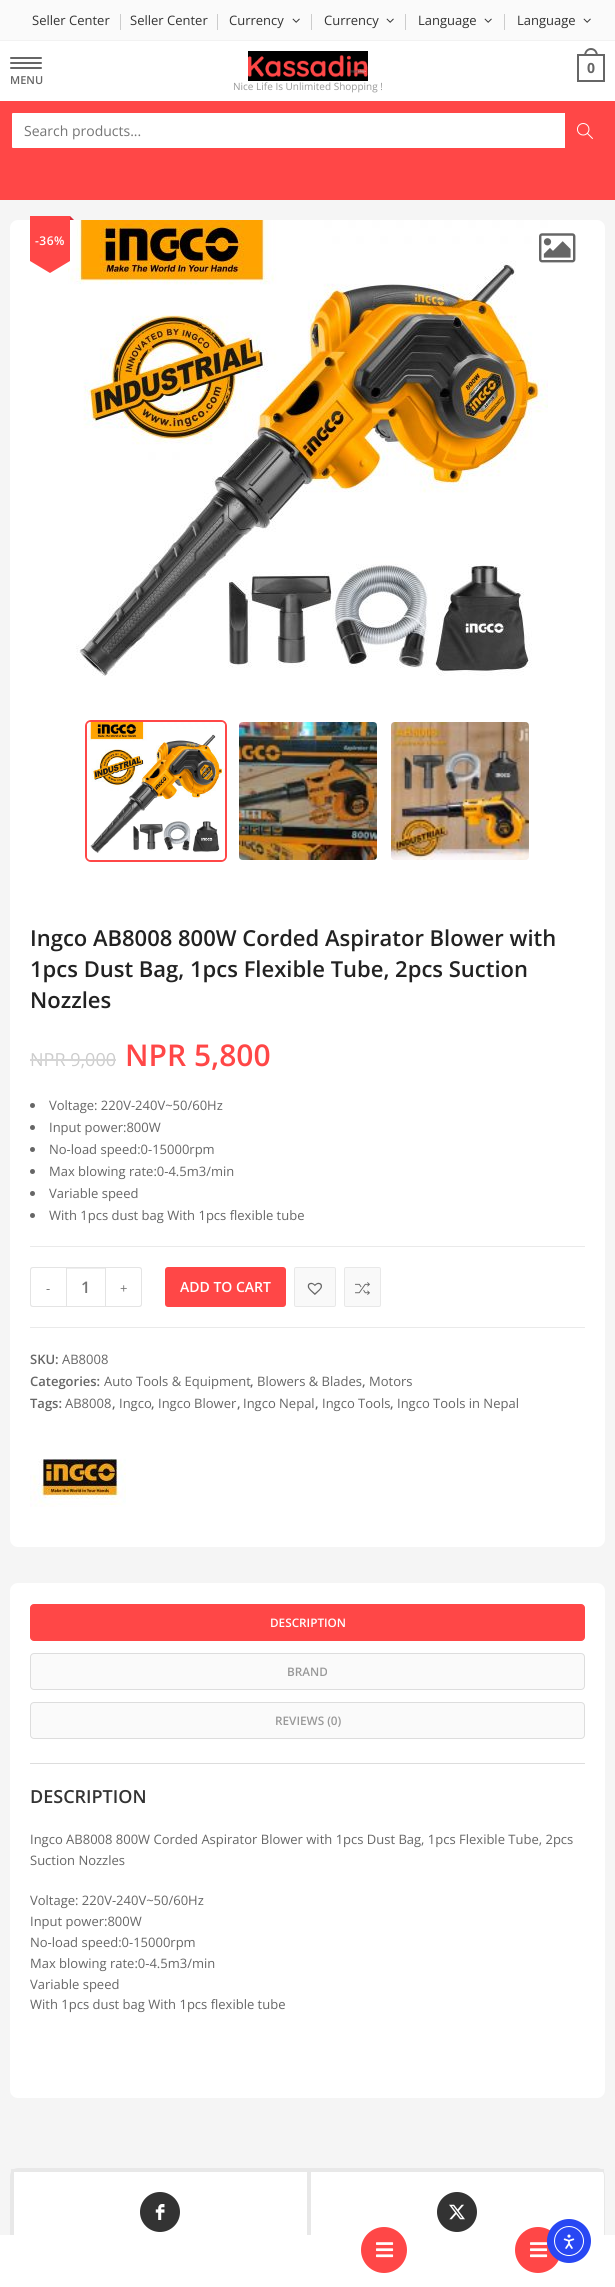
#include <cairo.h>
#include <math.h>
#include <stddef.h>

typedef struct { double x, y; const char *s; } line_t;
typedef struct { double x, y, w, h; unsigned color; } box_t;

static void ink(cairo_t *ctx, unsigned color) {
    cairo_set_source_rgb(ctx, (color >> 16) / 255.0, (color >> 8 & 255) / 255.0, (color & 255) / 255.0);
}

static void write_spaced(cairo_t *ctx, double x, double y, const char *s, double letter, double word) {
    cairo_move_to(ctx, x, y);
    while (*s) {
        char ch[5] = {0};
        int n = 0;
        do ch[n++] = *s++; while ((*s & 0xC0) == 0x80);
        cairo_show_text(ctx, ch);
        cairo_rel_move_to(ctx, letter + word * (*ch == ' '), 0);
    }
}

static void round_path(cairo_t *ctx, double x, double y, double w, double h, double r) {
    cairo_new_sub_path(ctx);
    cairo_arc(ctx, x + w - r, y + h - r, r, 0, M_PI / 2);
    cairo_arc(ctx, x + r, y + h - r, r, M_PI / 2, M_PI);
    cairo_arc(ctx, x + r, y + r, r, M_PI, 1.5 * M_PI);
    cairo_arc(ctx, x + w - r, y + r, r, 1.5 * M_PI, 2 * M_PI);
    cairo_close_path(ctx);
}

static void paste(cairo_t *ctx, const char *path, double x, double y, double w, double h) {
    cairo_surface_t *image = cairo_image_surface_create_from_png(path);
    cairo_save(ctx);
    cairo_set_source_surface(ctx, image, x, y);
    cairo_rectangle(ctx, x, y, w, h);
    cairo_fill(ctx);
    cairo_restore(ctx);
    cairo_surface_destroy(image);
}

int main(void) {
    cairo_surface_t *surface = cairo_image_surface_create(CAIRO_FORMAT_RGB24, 615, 2287);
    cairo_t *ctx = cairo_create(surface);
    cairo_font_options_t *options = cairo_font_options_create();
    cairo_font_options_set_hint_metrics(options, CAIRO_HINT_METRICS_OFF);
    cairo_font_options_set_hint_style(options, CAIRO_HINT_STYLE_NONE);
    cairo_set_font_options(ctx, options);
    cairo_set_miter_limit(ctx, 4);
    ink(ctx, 0xF5F5F5);
    cairo_paint(ctx);
    ink(ctx, 0xFAFAFA);
    cairo_rectangle(ctx, 0, 0, 615, 40);
    cairo_fill(ctx);
    ink(ctx, 0xF2F2F2);
    cairo_rectangle(ctx, 0, 40, 615, 1);
    cairo_fill(ctx);
    cairo_select_font_face(ctx, "Open Sans", CAIRO_FONT_SLANT_NORMAL, CAIRO_FONT_WEIGHT_NORMAL);
    cairo_set_font_size(ctx, 13);
    ink(ctx, 0x333333);
    cairo_move_to(ctx, 32, 25);
    cairo_show_text(ctx, "Seller Center");
    ink(ctx, 0xCCCCCC);
    cairo_rectangle(ctx, 120, 14, 1, 16);
    cairo_fill(ctx);
    ink(ctx, 0x333333);
    cairo_move_to(ctx, 130, 25);
    cairo_show_text(ctx, "Seller Center");
    ink(ctx, 0xCCCCCC);
    cairo_rectangle(ctx, 217, 14, 1, 16);
    cairo_fill(ctx);
    ink(ctx, 0x333333);
    cairo_move_to(ctx, 229, 25);
    cairo_show_text(ctx, "Currency");
    paste(ctx, "media/1.png", 292, 18, 8, 5);
    ink(ctx, 0xCCCCCC);
    cairo_rectangle(ctx, 311, 14, 1, 16);
    cairo_fill(ctx);
    ink(ctx, 0x333333);
    cairo_move_to(ctx, 324, 25);
    cairo_show_text(ctx, "Currency");
    paste(ctx, "media/1.png", 386, 18, 8, 5);
    ink(ctx, 0xCCCCCC);
    cairo_rectangle(ctx, 405, 14, 1, 16);
    cairo_fill(ctx);
    ink(ctx, 0x333333);
    cairo_move_to(ctx, 418, 25);
    cairo_show_text(ctx, "Language");
    paste(ctx, "media/1.png", 484, 18, 8, 5);
    ink(ctx, 0xCCCCCC);
    cairo_rectangle(ctx, 504, 14, 1, 16);
    cairo_fill(ctx);
    ink(ctx, 0x333333);
    cairo_move_to(ctx, 517, 25);
    cairo_show_text(ctx, "Language");
    paste(ctx, "media/1.png", 583, 18, 8, 5);
    ink(ctx, 0xFFFFFF);
    cairo_rectangle(ctx, 0, 41, 615, 60);
    cairo_fill(ctx);
    cairo_rectangle(ctx, 578, 55, 26, 26);
    ink(ctx, 0x666666);
    cairo_stroke(ctx);
    cairo_set_fill_rule(ctx, CAIRO_FILL_RULE_EVEN_ODD);
    cairo_new_path(ctx);
    cairo_move_to(ctx, 591, 48);
    cairo_curve_to(ctx, 595.5, 48, 598, 52, 598, 56);
    cairo_line_to(ctx, 584, 56);
    cairo_curve_to(ctx, 584, 52, 586.5, 48, 591, 48);
    cairo_close_path(ctx);
    cairo_move_to(ctx, 591, 50);
    cairo_curve_to(ctx, 594.5, 50, 596, 53, 596, 56);
    cairo_line_to(ctx, 586, 56);
    cairo_curve_to(ctx, 586, 53, 587.5, 50, 591, 50);
    cairo_close_path(ctx);
    cairo_fill(ctx);
    cairo_select_font_face(ctx, "Open Sans", CAIRO_FONT_SLANT_NORMAL, CAIRO_FONT_WEIGHT_BOLD);
    cairo_set_font_size(ctx, 14);
    write_spaced(ctx, 587, 73, "0", 1, 0);
    round_path(ctx, 10, 67, 32, 2, 1);
    cairo_fill(ctx);
    round_path(ctx, 10, 57, 32, 2, 1);
    cairo_fill(ctx);
    round_path(ctx, 10, 62, 32, 2, 1);
    cairo_fill(ctx);
    cairo_select_font_face(ctx, "Open Sans SemiBold", CAIRO_FONT_SLANT_NORMAL, CAIRO_FONT_WEIGHT_NORMAL);
    cairo_set_font_size(ctx, 11);
    cairo_move_to(ctx, 10, 84);
    cairo_show_text(ctx, "MENU");
    paste(ctx, "media/2.png", 248, 51, 120, 30);
    cairo_select_font_face(ctx, "Open Sans", CAIRO_FONT_SLANT_NORMAL, CAIRO_FONT_WEIGHT_NORMAL);
    cairo_set_font_size(ctx, 10);
    ink(ctx, 0x999999);
    cairo_move_to(ctx, 233, 90);
    cairo_show_text(ctx, "Nice Life Is Unlimited Shopping !");
    ink(ctx, 0xFF4747);
    cairo_rectangle(ctx, 0, 101, 615, 99);
    cairo_fill(ctx);
    ink(ctx, 0xFFFFFF);
    round_path(ctx, 11, 112, 593, 37, 2);
    cairo_fill_preserve(ctx);
    ink(ctx, 0xFF4747);
    cairo_stroke(ctx);
    cairo_set_font_size(ctx, 14);
    ink(ctx, 0x757575);
    cairo_move_to(ctx, 24, 136);
    cairo_show_text(ctx, "Search products...");
    ink(ctx, 0xFF4747);
    cairo_new_path(ctx);
    cairo_move_to(ctx, 565, 112);
    cairo_line_to(ctx, 601, 112);
    cairo_curve_to(ctx, 603, 112, 605, 114, 605, 116);
    cairo_line_to(ctx, 605, 146);
    cairo_curve_to(ctx, 605, 148, 603, 150, 601, 150);
    cairo_line_to(ctx, 565, 150);
    cairo_close_path(ctx);
    cairo_fill(ctx);
    paste(ctx, "media/3.png", 577, 123, 16, 16);
    ink(ctx, 0xFFFFFF);
    round_path(ctx, 10, 220, 595, 1327, 8);
    cairo_fill(ctx);
    paste(ctx, "media/4.png", 68, 220, 480, 456);
    ink(ctx, 0xFF4747);
    cairo_rectangle(ctx, 30, 216, 40, 45);
    cairo_fill(ctx);
    ink(ctx, 0xD92B37);
    cairo_set_fill_rule(ctx, CAIRO_FILL_RULE_WINDING);
    cairo_new_path(ctx);
    cairo_move_to(ctx, 74, 220);
    cairo_line_to(ctx, 70, 220);
    cairo_line_to(ctx, 70, 216);
    cairo_close_path(ctx);
    cairo_fill(ctx);
    cairo_select_font_face(ctx, "Open Sans SemiBold", CAIRO_FONT_SLANT_NORMAL, CAIRO_FONT_WEIGHT_NORMAL);
    cairo_set_font_size(ctx, 12);
    ink(ctx, 0xFFFFFF);
    write_spaced(ctx, 35, 245, "-36%", 0.5, 0);
    ink(ctx, 0xFF4747);
    cairo_new_path(ctx);
    cairo_move_to(ctx, 30, 261);
    cairo_line_to(ctx, 70, 261);
    cairo_line_to(ctx, 50, 273);
    cairo_close_path(ctx);
    cairo_fill(ctx);
    paste(ctx, "media/5.png", 539, 233, 37, 30);
    round_path(ctx, 86, 721, 140, 140, 5);
    cairo_stroke(ctx);
    paste(ctx, "media/6.png", 87, 722, 138, 138);
    paste(ctx, "media/7.png", 239, 722, 138, 138);
    paste(ctx, "media/8.png", 391, 722, 138, 138);
    cairo_set_font_size(ctx, 22);
    ink(ctx, 0x222222);
    {
        static const line_t items[] = {
            {30, 946, "Ingco AB8008 800W Corded Aspirator Blower with"},
            {30, 977, "1pcs Dust Bag, 1pcs Flexible Tube, 2pcs Suction"},
            {30, 1008, "Nozzles"},
        };
        for (size_t i = 0; i < sizeof items / sizeof *items; i++) {
            cairo_move_to(ctx, items[i].x, items[i].y);
            cairo_show_text(ctx, items[i].s);
        }
    }
    cairo_select_font_face(ctx, "Open Sans", CAIRO_FONT_SLANT_NORMAL, CAIRO_FONT_WEIGHT_NORMAL);
    cairo_set_font_size(ctx, 18);
    ink(ctx, 0xCCCCCC);
    cairo_move_to(ctx, 30, 1066);
    cairo_show_text(ctx, "NPR 9,000");
    ink(ctx, 0xD5D5D5);
    cairo_rectangle(ctx, 30, 1059, 86, 2);
    cairo_fill(ctx);
    cairo_select_font_face(ctx, "Open Sans SemiBold", CAIRO_FONT_SLANT_NORMAL, CAIRO_FONT_WEIGHT_NORMAL);
    cairo_set_font_size(ctx, 30);
    ink(ctx, 0xFF4747);
    cairo_move_to(ctx, 125, 1066);
    cairo_show_text(ctx, "NPR 5,800");
    ink(ctx, 0x666666);
    cairo_new_path(ctx);
    cairo_arc(ctx, 32.5, 1105.5, 2.5, 0, 2 * M_PI);
    cairo_fill(ctx);
    cairo_select_font_face(ctx, "Open Sans", CAIRO_FONT_SLANT_NORMAL, CAIRO_FONT_WEIGHT_NORMAL);
    cairo_set_font_size(ctx, 13);
    cairo_move_to(ctx, 49, 1110);
    cairo_show_text(ctx, "Voltage: 220V-240V~50/60Hz");
    cairo_new_path(ctx);
    cairo_arc(ctx, 32.5, 1127.5, 2.5, 0, 2 * M_PI);
    cairo_fill(ctx);
    cairo_move_to(ctx, 49, 1132);
    cairo_show_text(ctx, "Input power:800W");
    cairo_new_path(ctx);
    cairo_arc(ctx, 32.5, 1149.5, 2.5, 0, 2 * M_PI);
    cairo_fill(ctx);
    cairo_move_to(ctx, 49, 1154);
    cairo_show_text(ctx, "No-load speed:0-15000rpm");
    cairo_new_path(ctx);
    cairo_arc(ctx, 32.5, 1171.5, 2.5, 0, 2 * M_PI);
    cairo_fill(ctx);
    cairo_move_to(ctx, 49, 1176);
    cairo_show_text(ctx, "Max blowing rate:0-4.5m3/min");
    cairo_new_path(ctx);
    cairo_arc(ctx, 32.5, 1193.5, 2.5, 0, 2 * M_PI);
    cairo_fill(ctx);
    cairo_move_to(ctx, 49, 1198);
    cairo_show_text(ctx, "Variable speed");
    cairo_new_path(ctx);
    cairo_arc(ctx, 32.5, 1215.5, 2.5, 0, 2 * M_PI);
    cairo_fill(ctx);
    cairo_move_to(ctx, 49, 1220);
    cairo_show_text(ctx, "With 1pcs dust bag With 1pcs flexible tube");
    ink(ctx, 0xEAEAEA);
    cairo_rectangle(ctx, 30, 1246, 555, 1);
    cairo_fill(ctx);
    cairo_rectangle(ctx, 30, 1327, 555, 1);
    cairo_fill(ctx);
    ink(ctx, 0xE4E4E4);
    cairo_set_fill_rule(ctx, CAIRO_FILL_RULE_EVEN_ODD);
    cairo_new_path(ctx);
    cairo_move_to(ctx, 33, 1267);
    cairo_line_to(ctx, 66, 1267);
    cairo_line_to(ctx, 66, 1307);
    cairo_line_to(ctx, 33, 1307);
    cairo_curve_to(ctx, 31, 1307, 30, 1306, 30, 1304);
    cairo_line_to(ctx, 30, 1270);
    cairo_curve_to(ctx, 30, 1268, 31, 1267, 33, 1267);
    cairo_close_path(ctx);
    cairo_move_to(ctx, 33, 1268);
    cairo_line_to(ctx, 66, 1268);
    cairo_line_to(ctx, 66, 1306);
    cairo_line_to(ctx, 33, 1306);
    cairo_curve_to(ctx, 32, 1306, 31, 1305, 31, 1304);
    cairo_line_to(ctx, 31, 1270);
    cairo_curve_to(ctx, 31, 1269, 32, 1268, 33, 1268);
    cairo_close_path(ctx);
    cairo_fill(ctx);
    ink(ctx, 0x757575);
    cairo_move_to(ctx, 46, 1293);
    cairo_show_text(ctx, "-");
    ink(ctx, 0xEEEEEE);
    cairo_rectangle(ctx, 67, 1268, 38, 1);
    cairo_fill(ctx);
    cairo_rectangle(ctx, 66.5, 1267.5, 39, 39);
    ink(ctx, 0xE4E4E4);
    cairo_set_line_width(ctx, 1);
    cairo_stroke(ctx);
    cairo_select_font_face(ctx, "Open Sans SemiBold", CAIRO_FONT_SLANT_NORMAL, CAIRO_FONT_WEIGHT_NORMAL);
    cairo_set_font_size(ctx, 16);
    ink(ctx, 0x757575);
    cairo_move_to(ctx, 81, 1293);
    cairo_show_text(ctx, "1");
    ink(ctx, 0xE4E4E4);
    cairo_new_path(ctx);
    cairo_move_to(ctx, 106, 1267);
    cairo_line_to(ctx, 139, 1267);
    cairo_curve_to(ctx, 141, 1267, 142, 1268, 142, 1270);
    cairo_line_to(ctx, 142, 1304);
    cairo_curve_to(ctx, 142, 1306, 141, 1307, 139, 1307);
    cairo_line_to(ctx, 106, 1307);
    cairo_close_path(ctx);
    cairo_move_to(ctx, 106, 1268);
    cairo_line_to(ctx, 139, 1268);
    cairo_curve_to(ctx, 140, 1268, 141, 1269, 141, 1270);
    cairo_line_to(ctx, 141, 1304);
    cairo_curve_to(ctx, 141, 1305, 140, 1306, 139, 1306);
    cairo_line_to(ctx, 106, 1306);
    cairo_close_path(ctx);
    cairo_fill(ctx);
    cairo_select_font_face(ctx, "Open Sans", CAIRO_FONT_SLANT_NORMAL, CAIRO_FONT_WEIGHT_NORMAL);
    cairo_set_font_size(ctx, 13);
    ink(ctx, 0x757575);
    cairo_move_to(ctx, 120, 1293);
    cairo_show_text(ctx, "+");
    ink(ctx, 0xFF4747);
    round_path(ctx, 165, 1267, 121, 40, 3);
    cairo_fill(ctx);
    cairo_select_font_face(ctx, "Open Sans SemiBold", CAIRO_FONT_SLANT_NORMAL, CAIRO_FONT_WEIGHT_NORMAL);
    cairo_set_font_size(ctx, 14);
    ink(ctx, 0xFFFFFF);
    cairo_move_to(ctx, 180, 1292);
    cairo_show_text(ctx, "ADD TO CART");
    ink(ctx, 0xF9F9F9);
    round_path(ctx, 294.5, 1267.5, 41, 39, 1.5);
    cairo_fill_preserve(ctx);
    ink(ctx, 0xE8E8E8);
    cairo_stroke(ctx);
    paste(ctx, "media/9.png", 307, 1282, 15, 13);
    ink(ctx, 0xF9F9F9);
    round_path(ctx, 344.5, 1267.5, 36, 39, 1.5);
    cairo_fill_preserve(ctx);
    ink(ctx, 0xE8E8E8);
    cairo_stroke(ctx);
    paste(ctx, "media/10.png", 355, 1282, 15, 13);
    cairo_set_font_size(ctx, 13);
    ink(ctx, 0x666666);
    cairo_move_to(ctx, 30, 1364);
    cairo_show_text(ctx, "SKU:");
    cairo_select_font_face(ctx, "Open Sans", CAIRO_FONT_SLANT_NORMAL, CAIRO_FONT_WEIGHT_NORMAL);
    cairo_move_to(ctx, 62, 1364);
    cairo_show_text(ctx, "AB8008");
    cairo_select_font_face(ctx, "Open Sans SemiBold", CAIRO_FONT_SLANT_NORMAL, CAIRO_FONT_WEIGHT_NORMAL);
    cairo_move_to(ctx, 30, 1386);
    cairo_show_text(ctx, "Categories:");
    cairo_select_font_face(ctx, "Open Sans", CAIRO_FONT_SLANT_NORMAL, CAIRO_FONT_WEIGHT_NORMAL);
    cairo_move_to(ctx, 104, 1386);
    cairo_show_text(ctx, "Auto Tools & Equipment");
    cairo_select_font_face(ctx, "Open Sans SemiBold", CAIRO_FONT_SLANT_NORMAL, CAIRO_FONT_WEIGHT_NORMAL);
    cairo_move_to(ctx, 250, 1386);
    cairo_show_text(ctx, ",");
    cairo_select_font_face(ctx, "Open Sans", CAIRO_FONT_SLANT_NORMAL, CAIRO_FONT_WEIGHT_NORMAL);
    cairo_move_to(ctx, 257, 1386);
    cairo_show_text(ctx, "Blowers & Blades");
    cairo_select_font_face(ctx, "Open Sans SemiBold", CAIRO_FONT_SLANT_NORMAL, CAIRO_FONT_WEIGHT_NORMAL);
    cairo_move_to(ctx, 362, 1386);
    cairo_show_text(ctx, ",");
    cairo_select_font_face(ctx, "Open Sans", CAIRO_FONT_SLANT_NORMAL, CAIRO_FONT_WEIGHT_NORMAL);
    cairo_move_to(ctx, 369, 1386);
    cairo_show_text(ctx, "Motors");
    cairo_select_font_face(ctx, "Open Sans SemiBold", CAIRO_FONT_SLANT_NORMAL, CAIRO_FONT_WEIGHT_NORMAL);
    cairo_move_to(ctx, 30, 1408);
    cairo_show_text(ctx, "Tags:");
    cairo_select_font_face(ctx, "Open Sans", CAIRO_FONT_SLANT_NORMAL, CAIRO_FONT_WEIGHT_NORMAL);
    cairo_move_to(ctx, 65, 1408);
    cairo_show_text(ctx, "AB8008");
    cairo_select_font_face(ctx, "Open Sans SemiBold", CAIRO_FONT_SLANT_NORMAL, CAIRO_FONT_WEIGHT_NORMAL);
    cairo_move_to(ctx, 112, 1408);
    cairo_show_text(ctx, ",");
    cairo_select_font_face(ctx, "Open Sans", CAIRO_FONT_SLANT_NORMAL, CAIRO_FONT_WEIGHT_NORMAL);
    cairo_move_to(ctx, 119, 1408);
    cairo_show_text(ctx, "Ingco");
    cairo_select_font_face(ctx, "Open Sans SemiBold", CAIRO_FONT_SLANT_NORMAL, CAIRO_FONT_WEIGHT_NORMAL);
    cairo_move_to(ctx, 151, 1408);
    cairo_show_text(ctx, ",");
    cairo_select_font_face(ctx, "Open Sans", CAIRO_FONT_SLANT_NORMAL, CAIRO_FONT_WEIGHT_NORMAL);
    cairo_move_to(ctx, 158, 1408);
    cairo_show_text(ctx, "Ingco Blower");
    cairo_select_font_face(ctx, "Open Sans SemiBold", CAIRO_FONT_SLANT_NORMAL, CAIRO_FONT_WEIGHT_NORMAL);
    cairo_move_to(ctx, 237, 1408);
    cairo_show_text(ctx, ",");
    cairo_select_font_face(ctx, "Open Sans", CAIRO_FONT_SLANT_NORMAL, CAIRO_FONT_WEIGHT_NORMAL);
    cairo_move_to(ctx, 243, 1408);
    cairo_show_text(ctx, "Ingco Nepal");
    cairo_select_font_face(ctx, "Open Sans SemiBold", CAIRO_FONT_SLANT_NORMAL, CAIRO_FONT_WEIGHT_NORMAL);
    cairo_move_to(ctx, 315, 1408);
    cairo_show_text(ctx, ",");
    cairo_select_font_face(ctx, "Open Sans", CAIRO_FONT_SLANT_NORMAL, CAIRO_FONT_WEIGHT_NORMAL);
    cairo_move_to(ctx, 322, 1408);
    cairo_show_text(ctx, "Ingco Tools");
    cairo_select_font_face(ctx, "Open Sans SemiBold", CAIRO_FONT_SLANT_NORMAL, CAIRO_FONT_WEIGHT_NORMAL);
    cairo_move_to(ctx, 390, 1408);
    cairo_show_text(ctx, ",");
    cairo_select_font_face(ctx, "Open Sans", CAIRO_FONT_SLANT_NORMAL, CAIRO_FONT_WEIGHT_NORMAL);
    cairo_move_to(ctx, 397, 1408);
    cairo_show_text(ctx, "Ingco Tools in Nepal");
    paste(ctx, "media/11.png", 30, 1458, 96, 49);
    ink(ctx, 0xFFFFFF);
    round_path(ctx, 10, 1583, 595, 515, 8);
    cairo_fill(ctx);
    ink(ctx, 0xDDDDDD);
    cairo_rectangle(ctx, 30, 1763, 555, 1);
    cairo_fill(ctx);
    ink(ctx, 0xFF4747);
    round_path(ctx, 30.5, 1604.5, 554, 36, 3.5);
    cairo_fill_preserve(ctx);
    cairo_stroke(ctx);
    cairo_select_font_face(ctx, "Open Sans SemiBold", CAIRO_FONT_SLANT_NORMAL, CAIRO_FONT_WEIGHT_NORMAL);
    cairo_set_font_size(ctx, 11.75);
    ink(ctx, 0xFFFFFF);
    cairo_move_to(ctx, 270, 1627);
    cairo_show_text(ctx, "DESCRIPTION");
    ink(ctx, 0xFAFAFA);
    round_path(ctx, 30.5, 1653.5, 554, 36, 3.5);
    cairo_fill_preserve(ctx);
    ink(ctx, 0xDDDDDD);
    cairo_stroke(ctx);
    ink(ctx, 0x999999);
    cairo_move_to(ctx, 287, 1676);
    cairo_show_text(ctx, "BRAND");
    ink(ctx, 0xFAFAFA);
    round_path(ctx, 30.5, 1702.5, 554, 36, 3.5);
    cairo_fill_preserve(ctx);
    ink(ctx, 0xDDDDDD);
    cairo_stroke(ctx);
    ink(ctx, 0x999999);
    cairo_move_to(ctx, 275, 1725);
    cairo_show_text(ctx, "REVIEWS (0)");
    cairo_set_font_size(ctx, 18);
    ink(ctx, 0x333333);
    cairo_move_to(ctx, 30, 1803);
    cairo_show_text(ctx, "DESCRIPTION");
    cairo_select_font_face(ctx, "Open Sans", CAIRO_FONT_SLANT_NORMAL, CAIRO_FONT_WEIGHT_NORMAL);
    cairo_set_font_size(ctx, 13);
    ink(ctx, 0x666666);
    {
        static const line_t items[] = {
            {30, 1844, "Ingco AB8008 800W Corded Aspirator Blower with 1pcs Dust Bag, 1pcs Flexible Tube, 2pcs"},
            {30, 1865, "Suction Nozzles"},
            {30, 1905, "Voltage: 220V-240V~50/60Hz"},
            {30, 1926, "Input power:800W"},
            {30, 1947, "No-load speed:0-15000rpm"},
            {30, 1968, "Max blowing rate:0-4.5m3/min"},
            {30, 1989, "Variable speed"},
            {30, 2009, "With 1pcs dust bag With 1pcs flexible tube"},
        };
        for (size_t i = 0; i < sizeof items / sizeof *items; i++) {
            cairo_move_to(ctx, items[i].x, items[i].y);
            cairo_show_text(ctx, items[i].s);
        }
    }
    ink(ctx, 0xFFFFFF);
    round_path(ctx, 10.5, 2168.5, 594, 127, 7.5);
    cairo_fill_preserve(ctx);
    ink(ctx, 0xE8E8E8);
    cairo_stroke(ctx);
    {
        static const box_t items[] = {
            {11, 2169, 593, 3, 0xE8E8E8},
            {307, 2169, 4, 66, 0xE8E8E8},
            {11, 2169, 3, 66, 0xE8E8E8},
        };
        for (size_t i = 0; i < sizeof items / sizeof *items; i++) {
            ink(ctx, items[i].color);
            cairo_rectangle(ctx, items[i].x, items[i].y, items[i].w, items[i].h);
            cairo_fill(ctx);
        }
    }
    ink(ctx, 0x333333);
    cairo_arc(ctx, 160, 2212, 20, 0, 2 * M_PI);
    cairo_fill(ctx);
    paste(ctx, "media/12.png", 155, 2204, 10, 16);
    cairo_arc(ctx, 457, 2212, 20, 0, 2 * M_PI);
    cairo_fill(ctx);
    paste(ctx, "media/13.png", 449, 2204, 16, 16);
    ink(ctx, 0xFFFFFF);
    cairo_rectangle(ctx, 0, 2235, 615, 52);
    cairo_fill(ctx);
    ink(ctx, 0xFF4747);
    cairo_arc(ctx, 538, 2250, 25.5, 0, 2 * M_PI);
    cairo_fill_preserve(ctx);
    ink(ctx, 0xFFFFFF);
    cairo_set_line_width(ctx, 5);
    cairo_stroke(ctx);
    paste(ctx, "media/15.png", 530, 2242, 18, 16);
    ink(ctx, 0x2847F3);
    cairo_arc(ctx, 569, 2241, 22, 0, 2 * M_PI);
    cairo_fill(ctx);
    cairo_arc(ctx, 569, 2241, 14.5, 0, 2 * M_PI);
    ink(ctx, 0xFFFFFF);
    cairo_set_line_width(ctx, 1);
    cairo_stroke(ctx);
    paste(ctx, "media/14.png", 563, 2234, 12, 15);
    ink(ctx, 0xFF4747);
    cairo_arc(ctx, 384, 2250, 25.5, 0, 2 * M_PI);
    cairo_fill_preserve(ctx);
    ink(ctx, 0xFFFFFF);
    cairo_set_line_width(ctx, 5);
    cairo_stroke(ctx);
    paste(ctx, "media/15.png", 376, 2242, 18, 16);
    cairo_surface_write_to_png(surface, "image.png");
    cairo_font_options_destroy(options);
    cairo_destroy(ctx);
    cairo_surface_destroy(surface);
    return 0;
}
